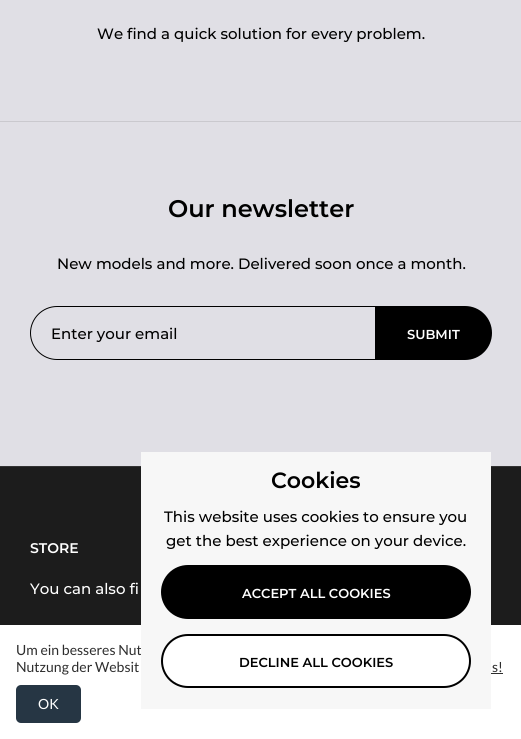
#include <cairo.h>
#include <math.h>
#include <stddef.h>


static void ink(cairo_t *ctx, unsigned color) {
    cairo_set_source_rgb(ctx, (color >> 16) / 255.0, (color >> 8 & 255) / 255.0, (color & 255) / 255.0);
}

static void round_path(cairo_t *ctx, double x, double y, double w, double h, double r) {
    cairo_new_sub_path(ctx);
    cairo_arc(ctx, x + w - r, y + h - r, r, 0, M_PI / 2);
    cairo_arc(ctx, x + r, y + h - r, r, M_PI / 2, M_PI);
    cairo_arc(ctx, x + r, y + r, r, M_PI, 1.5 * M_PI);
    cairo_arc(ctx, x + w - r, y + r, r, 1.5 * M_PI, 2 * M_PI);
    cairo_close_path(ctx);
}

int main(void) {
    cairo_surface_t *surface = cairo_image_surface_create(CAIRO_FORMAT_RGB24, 521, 739);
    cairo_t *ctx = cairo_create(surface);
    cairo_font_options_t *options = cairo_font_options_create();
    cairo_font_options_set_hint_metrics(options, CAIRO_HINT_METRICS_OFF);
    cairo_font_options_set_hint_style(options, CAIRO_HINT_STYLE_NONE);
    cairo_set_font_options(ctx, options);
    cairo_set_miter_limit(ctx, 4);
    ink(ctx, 0xE0DFE5);
    cairo_paint(ctx);
    cairo_select_font_face(ctx, "Montserrat Medium", CAIRO_FONT_SLANT_NORMAL, CAIRO_FONT_WEIGHT_NORMAL);
    cairo_set_font_size(ctx, 15);
    ink(ctx, 0x000000);
    cairo_move_to(ctx, 97, 39);
    cairo_show_text(ctx, "We find a quick solution for every problem.");
    ink(ctx, 0xCAC9CE);
    cairo_rectangle(ctx, 0, 121, 521, 1);
    cairo_fill(ctx);
    cairo_select_font_face(ctx, "Montserrat SemiBold", CAIRO_FONT_SLANT_NORMAL, CAIRO_FONT_WEIGHT_NORMAL);
    cairo_set_font_size(ctx, 24);
    ink(ctx, 0x000000);
    cairo_move_to(ctx, 168, 217);
    cairo_show_text(ctx, "Our newsletter");
    cairo_select_font_face(ctx, "Montserrat Medium", CAIRO_FONT_SLANT_NORMAL, CAIRO_FONT_WEIGHT_NORMAL);
    cairo_set_font_size(ctx, 15);
    cairo_move_to(ctx, 57, 269);
    cairo_show_text(ctx, "New models and more. Delivered soon once a month.");
    cairo_new_path(ctx);
    cairo_move_to(ctx, 57, 306.5);
    cairo_line_to(ctx, 375.5, 306.5);
    cairo_line_to(ctx, 375.5, 359.5);
    cairo_line_to(ctx, 57, 359.5);
    cairo_curve_to(ctx, 42.5, 359.5, 30.5, 347.5, 30.5, 333);
    cairo_curve_to(ctx, 30.5, 318.5, 42.5, 306.5, 57, 306.5);
    cairo_close_path(ctx);
    cairo_set_line_width(ctx, 1);
    cairo_stroke(ctx);
    cairo_move_to(ctx, 51, 339);
    cairo_show_text(ctx, "Enter your email");
    cairo_new_path(ctx);
    cairo_move_to(ctx, 375, 306);
    cairo_line_to(ctx, 465, 306);
    cairo_curve_to(ctx, 480, 306, 492, 318, 492, 333);
    cairo_curve_to(ctx, 492, 348, 480, 360, 465, 360);
    cairo_line_to(ctx, 375, 360);
    cairo_close_path(ctx);
    cairo_fill(ctx);
    cairo_select_font_face(ctx, "Montserrat SemiBold", CAIRO_FONT_SLANT_NORMAL, CAIRO_FONT_WEIGHT_NORMAL);
    cairo_set_font_size(ctx, 13);
    ink(ctx, 0xFFFFFF);
    cairo_move_to(ctx, 407, 339);
    cairo_show_text(ctx, "SUBMIT");
    ink(ctx, 0x1C1C1C);
    cairo_rectangle(ctx, 0, 467, 521, 158);
    cairo_fill(ctx);
    ink(ctx, 0x333333);
    cairo_rectangle(ctx, 0, 466, 521, 1);
    cairo_fill(ctx);
    cairo_set_font_size(ctx, 14);
    ink(ctx, 0xFFFFFF);
    cairo_move_to(ctx, 30, 553);
    cairo_show_text(ctx, "STORE");
    cairo_select_font_face(ctx, "Montserrat Medium", CAIRO_FONT_SLANT_NORMAL, CAIRO_FONT_WEIGHT_NORMAL);
    cairo_set_font_size(ctx, 15);
    cairo_move_to(ctx, 30, 594);
    cairo_show_text(ctx, "You can also fi");
    cairo_rectangle(ctx, 0, 625, 521, 114);
    cairo_fill(ctx);
    cairo_select_font_face(ctx, "Lato", CAIRO_FONT_SLANT_NORMAL, CAIRO_FONT_WEIGHT_NORMAL);
    cairo_set_font_size(ctx, 14);
    ink(ctx, 0x2D2D2D);
    cairo_move_to(ctx, 16, 655);
    cairo_show_text(ctx, "Um ein besseres Nut");
    ink(ctx, 0xF7F7F7);
    cairo_rectangle(ctx, 141, 452, 350, 257);
    cairo_fill(ctx);
    cairo_select_font_face(ctx, "Montserrat SemiBold", CAIRO_FONT_SLANT_NORMAL, CAIRO_FONT_WEIGHT_NORMAL);
    cairo_set_font_size(ctx, 22);
    ink(ctx, 0x000000);
    cairo_move_to(ctx, 271, 488);
    cairo_show_text(ctx, "Cookies");
    cairo_select_font_face(ctx, "Montserrat Medium", CAIRO_FONT_SLANT_NORMAL, CAIRO_FONT_WEIGHT_NORMAL);
    cairo_set_font_size(ctx, 15);
    cairo_move_to(ctx, 164, 522);
    cairo_show_text(ctx, "This website uses cookies to ensure you");
    cairo_move_to(ctx, 166, 546);
    cairo_show_text(ctx, "get the best experience on your device.");
    round_path(ctx, 161, 565, 310, 54, 27);
    cairo_fill(ctx);
    cairo_select_font_face(ctx, "Montserrat SemiBold", CAIRO_FONT_SLANT_NORMAL, CAIRO_FONT_WEIGHT_NORMAL);
    cairo_set_font_size(ctx, 13);
    ink(ctx, 0xFFFFFF);
    cairo_move_to(ctx, 242, 598);
    cairo_show_text(ctx, "ACCEPT ALL COOKIES");
    round_path(ctx, 162, 635, 308, 52, 26);
    cairo_fill_preserve(ctx);
    ink(ctx, 0x000000);
    cairo_set_line_width(ctx, 2);
    cairo_stroke(ctx);
    cairo_move_to(ctx, 239, 667);
    cairo_show_text(ctx, "DECLINE ALL COOKIES");
    cairo_select_font_face(ctx, "Lato", CAIRO_FONT_SLANT_NORMAL, CAIRO_FONT_WEIGHT_NORMAL);
    cairo_set_font_size(ctx, 14);
    ink(ctx, 0x2D2D2D);
    cairo_move_to(ctx, 16, 672);
    cairo_show_text(ctx, "Nutzung der Websit");
    cairo_move_to(ctx, 492, 672);
    cairo_show_text(ctx, "s!");
    cairo_rectangle(ctx, 491, 673, 12, 1);
    cairo_fill(ctx);
    ink(ctx, 0x263644);
    round_path(ctx, 16, 685, 65, 38, 5);
    cairo_fill(ctx);
    ink(ctx, 0xFFFFFF);
    cairo_move_to(ctx, 38, 709);
    cairo_show_text(ctx, "OK");
    cairo_surface_write_to_png(surface, "image.png");
    cairo_font_options_destroy(options);
    cairo_destroy(ctx);
    cairo_surface_destroy(surface);
    return 0;
}
